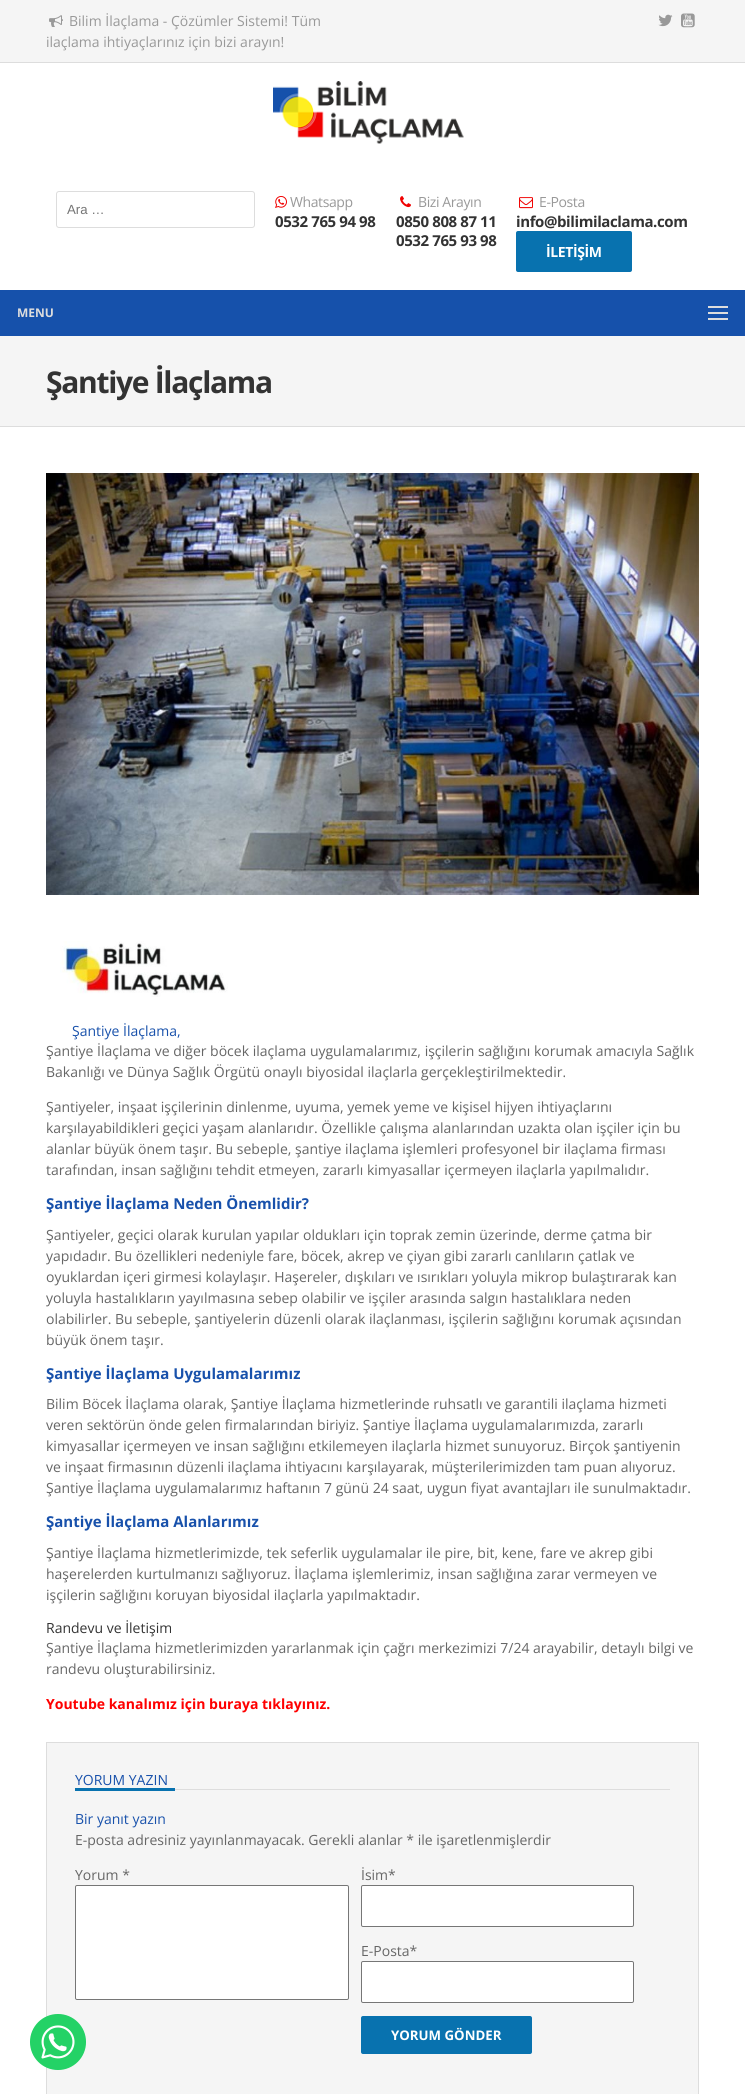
#include <cairo.h>
#include <math.h>
#include <stddef.h>

typedef struct { double x, y; const char *s; } line_t;
typedef struct { double x, y, w, h; unsigned color; } box_t;

static void ink(cairo_t *ctx, unsigned color) {
    cairo_set_source_rgb(ctx, (color >> 16) / 255.0, (color >> 8 & 255) / 255.0, (color & 255) / 255.0);
}

static void write_spaced(cairo_t *ctx, double x, double y, const char *s, double letter, double word) {
    cairo_move_to(ctx, x, y);
    while (*s) {
        char ch[5] = {0};
        int n = 0;
        do ch[n++] = *s++; while ((*s & 0xC0) == 0x80);
        cairo_show_text(ctx, ch);
        cairo_rel_move_to(ctx, letter + word * (*ch == ' '), 0);
    }
}

static void round_path(cairo_t *ctx, double x, double y, double w, double h, double r) {
    cairo_new_sub_path(ctx);
    cairo_arc(ctx, x + w - r, y + h - r, r, 0, M_PI / 2);
    cairo_arc(ctx, x + r, y + h - r, r, M_PI / 2, M_PI);
    cairo_arc(ctx, x + r, y + r, r, M_PI, 1.5 * M_PI);
    cairo_arc(ctx, x + w - r, y + r, r, 1.5 * M_PI, 2 * M_PI);
    cairo_close_path(ctx);
}

static void paste(cairo_t *ctx, const char *path, double x, double y, double w, double h) {
    cairo_surface_t *image = cairo_image_surface_create_from_png(path);
    cairo_save(ctx);
    cairo_set_source_surface(ctx, image, x, y);
    cairo_rectangle(ctx, x, y, w, h);
    cairo_fill(ctx);
    cairo_restore(ctx);
    cairo_surface_destroy(image);
}

int main(void) {
    cairo_surface_t *surface = cairo_image_surface_create(CAIRO_FORMAT_RGB24, 745, 2094);
    cairo_t *ctx = cairo_create(surface);
    cairo_font_options_t *options = cairo_font_options_create();
    cairo_font_options_set_hint_metrics(options, CAIRO_HINT_METRICS_OFF);
    cairo_font_options_set_hint_style(options, CAIRO_HINT_STYLE_NONE);
    cairo_set_font_options(ctx, options);
    cairo_set_miter_limit(ctx, 4);
    ink(ctx, 0xF5F5F5);
    cairo_paint(ctx);
    ink(ctx, 0xDDDDDD);
    cairo_rectangle(ctx, 0, 62, 745, 1);
    cairo_fill(ctx);
    paste(ctx, "media/1.png", 49, 15, 14, 12);
    cairo_select_font_face(ctx, "Open Sans", CAIRO_FONT_SLANT_NORMAL, CAIRO_FONT_WEIGHT_NORMAL);
    cairo_set_font_size(ctx, 14);
    ink(ctx, 0x999999);
    cairo_move_to(ctx, 69, 26);
    cairo_show_text(ctx, "Bilim İlaçlama - Çözümler Sistemi! Tüm");
    cairo_move_to(ctx, 46, 47);
    cairo_show_text(ctx, "ilaçlama ihtiyaçlarınız için bizi arayın!");
    paste(ctx, "media/2.png", 658, 14, 15, 13);
    paste(ctx, "media/3.png", 681, 13, 14, 15);
    ink(ctx, 0xFFFFFF);
    cairo_rectangle(ctx, 0, 63, 745, 227);
    cairo_fill(ctx);
    paste(ctx, "media/4.png", 273, 81, 191, 63);
    round_path(ctx, 56.5, 191.5, 198, 36, 2.5);
    ink(ctx, 0xDDDDDD);
    cairo_set_line_width(ctx, 1);
    cairo_stroke(ctx);
    cairo_select_font_face(ctx, "Liberation Sans", CAIRO_FONT_SLANT_NORMAL, CAIRO_FONT_WEIGHT_NORMAL);
    cairo_set_font_size(ctx, 13.25);
    ink(ctx, 0x757575);
    cairo_move_to(ctx, 67, 214);
    cairo_show_text(ctx, "Ara …");
    paste(ctx, "media/5.png", 275, 196, 12, 12);
    cairo_select_font_face(ctx, "Open Sans", CAIRO_FONT_SLANT_NORMAL, CAIRO_FONT_WEIGHT_NORMAL);
    cairo_set_font_size(ctx, 14);
    ink(ctx, 0x999999);
    write_spaced(ctx, 290, 207, "Whatsapp", -0.4, 0);
    cairo_select_font_face(ctx, "Open Sans", CAIRO_FONT_SLANT_NORMAL, CAIRO_FONT_WEIGHT_BOLD);
    cairo_set_font_size(ctx, 15);
    ink(ctx, 0x333333);
    write_spaced(ctx, 275, 227, "0532 765 94 98", -0.4, 0);
    paste(ctx, "media/6.png", 400, 196, 11, 12);
    cairo_select_font_face(ctx, "Open Sans", CAIRO_FONT_SLANT_NORMAL, CAIRO_FONT_WEIGHT_NORMAL);
    cairo_set_font_size(ctx, 14);
    ink(ctx, 0x999999);
    write_spaced(ctx, 418, 207, "Bizi Arayın", -0.4, 0);
    cairo_select_font_face(ctx, "Open Sans", CAIRO_FONT_SLANT_NORMAL, CAIRO_FONT_WEIGHT_BOLD);
    cairo_set_font_size(ctx, 15);
    ink(ctx, 0x333333);
    write_spaced(ctx, 396, 227, "0850 808 87 11", -0.4, 0);
    write_spaced(ctx, 396, 246, "0532 765 93 98", -0.4, 0);
    paste(ctx, "media/7.png", 519, 197, 14, 12);
    cairo_select_font_face(ctx, "Open Sans", CAIRO_FONT_SLANT_NORMAL, CAIRO_FONT_WEIGHT_NORMAL);
    cairo_set_font_size(ctx, 14);
    ink(ctx, 0x999999);
    write_spaced(ctx, 539, 207, "E-Posta", -0.4, 0);
    cairo_select_font_face(ctx, "Open Sans", CAIRO_FONT_SLANT_NORMAL, CAIRO_FONT_WEIGHT_BOLD);
    cairo_set_font_size(ctx, 15);
    ink(ctx, 0x333333);
    write_spaced(ctx, 516, 227, "info@bilimilaclama.com", -0.4, 0);
    ink(ctx, 0x0872AF);
    round_path(ctx, 516, 231, 116, 41, 2);
    cairo_fill(ctx);
    cairo_set_font_size(ctx, 14);
    ink(ctx, 0xFFFFFF);
    write_spaced(ctx, 546, 257, "İLETİŞİM", -0.4, 0);
    ink(ctx, 0x1651AB);
    cairo_rectangle(ctx, 0, 290, 745, 46);
    cairo_fill(ctx);
    ink(ctx, 0xDDDDDD);
    cairo_rectangle(ctx, 708, 306, 20, 2);
    cairo_fill(ctx);
    cairo_set_font_size(ctx, 12);
    cairo_move_to(ctx, 17, 317);
    cairo_show_text(ctx, "MENU");
    {
        static const box_t items[] = {
            {708, 312, 20, 2, 0xDDDDDD},
            {708, 318, 20, 2, 0xDDDDDD},
            {0, 426, 745, 1, 0xDDDDDD},
        };
        for (size_t i = 0; i < sizeof items / sizeof *items; i++) {
            ink(ctx, items[i].color);
            cairo_rectangle(ctx, items[i].x, items[i].y, items[i].w, items[i].h);
            cairo_fill(ctx);
        }
    }
    cairo_set_font_size(ctx, 30);
    ink(ctx, 0x333333);
    write_spaced(ctx, 46, 393, "Şantiye İlaçlama", -1.3, 0);
    ink(ctx, 0xFFFFFF);
    cairo_rectangle(ctx, 0, 427, 745, 1667);
    cairo_fill(ctx);
    paste(ctx, "media/8.png", 46, 473, 653, 422);
    paste(ctx, "media/9.png", 60, 941, 168, 56);
    cairo_select_font_face(ctx, "Open Sans", CAIRO_FONT_SLANT_NORMAL, CAIRO_FONT_WEIGHT_NORMAL);
    cairo_set_font_size(ctx, 14);
    ink(ctx, 0x1851AB);
    cairo_move_to(ctx, 72, 1036);
    cairo_show_text(ctx, "Şantiye İlaçlama,");
    ink(ctx, 0x666666);
    {
        static const line_t items[] = {
            {46, 1056, "Şantiye İlaçlama ve diğer böcek ilaçlama uygulamalarımız, işçilerin sağlığını korumak amacıyla Sağlık"},
            {46, 1077, "Bakanlığı ve Dünya Sağlık Örgütü onaylı biyosidal ilaçlarla gerçekleştirilmektedir."},
            {46, 1112, "Şantiyeler, inşaat işçilerinin dinlenme, uyuma, yemek yeme ve kişisel hijyen ihtiyaçlarını"},
            {46, 1133, "karşılayabildikleri geçici yaşam alanlarıdır. Özellikle çalışma alanlarından uzakta olan işçiler için bu"},
            {46, 1154, "alanlar büyük önem taşır. Bu sebeple, şantiye ilaçlama işlemleri profesyonel bir ilaçlama firması"},
            {46, 1175, "tarafından, insan sağlığını tehdit etmeyen, zararlı kimyasallar içermeyen ilaçlarla yapılmalıdır."},
        };
        for (size_t i = 0; i < sizeof items / sizeof *items; i++) {
            cairo_move_to(ctx, items[i].x, items[i].y);
            cairo_show_text(ctx, items[i].s);
        }
    }
    cairo_select_font_face(ctx, "Open Sans", CAIRO_FONT_SLANT_NORMAL, CAIRO_FONT_WEIGHT_BOLD);
    cairo_set_font_size(ctx, 15);
    ink(ctx, 0x1851AB);
    cairo_move_to(ctx, 46, 1209);
    cairo_show_text(ctx, "Şantiye İlaçlama Neden Önemlidir?");
    cairo_select_font_face(ctx, "Open Sans", CAIRO_FONT_SLANT_NORMAL, CAIRO_FONT_WEIGHT_NORMAL);
    cairo_set_font_size(ctx, 14);
    ink(ctx, 0x666666);
    {
        static const line_t items[] = {
            {46, 1240, "Şantiyeler, geçici olarak kurulan yapılar oldukları için toprak zemin üzerinde, derme çatma bir"},
            {46, 1261, "yapıdadır. Bu özellikleri nedeniyle fare, böcek, akrep ve çiyan gibi zararlı canlıların çatlak ve"},
            {46, 1282, "oyuklardan içeri girmesi kolaylaşır. Haşereler, dışkıları ve ısırıkları yoluyla mikrop bulaştırarak kan"},
            {46, 1303, "yoluyla hastalıkların yayılmasına sebep olabilir ve işçiler arasında salgın hastalıklara neden"},
            {46, 1324, "olabilirler. Bu sebeple, şantiyelerin düzenli olarak ilaçlanması, işçilerin sağlığını korumak açısından"},
            {46, 1345, "büyük önem taşır."},
        };
        for (size_t i = 0; i < sizeof items / sizeof *items; i++) {
            cairo_move_to(ctx, items[i].x, items[i].y);
            cairo_show_text(ctx, items[i].s);
        }
    }
    cairo_select_font_face(ctx, "Open Sans", CAIRO_FONT_SLANT_NORMAL, CAIRO_FONT_WEIGHT_BOLD);
    cairo_set_font_size(ctx, 15);
    ink(ctx, 0x1851AB);
    cairo_move_to(ctx, 46, 1379);
    cairo_show_text(ctx, "Şantiye İlaçlama Uygulamalarımız");
    cairo_select_font_face(ctx, "Open Sans", CAIRO_FONT_SLANT_NORMAL, CAIRO_FONT_WEIGHT_NORMAL);
    cairo_set_font_size(ctx, 14);
    ink(ctx, 0x666666);
    {
        static const line_t items[] = {
            {46, 1409, "Bilim Böcek İlaçlama olarak, Şantiye İlaçlama hizmetlerinde ruhsatlı ve garantili ilaçlama hizmeti"},
            {46, 1430, "veren sektörün önde gelen firmalarından biriyiz. Şantiye İlaçlama uygulamalarımızda, zararlı"},
            {46, 1451, "kimyasallar içermeyen ve insan sağlığını etkilemeyen ilaçlarla hizmet sunuyoruz. Birçok şantiyenin"},
            {46, 1472, "ve inşaat firmasının düzenli ilaçlama ihtiyacını karşılayarak, müşterilerimizden tam puan alıyoruz."},
            {46, 1493, "Şantiye İlaçlama uygulamalarımız haftanın 7 günü 24 saat, uygun fiyat avantajları ile sunulmaktadır."},
        };
        for (size_t i = 0; i < sizeof items / sizeof *items; i++) {
            cairo_move_to(ctx, items[i].x, items[i].y);
            cairo_show_text(ctx, items[i].s);
        }
    }
    cairo_select_font_face(ctx, "Open Sans", CAIRO_FONT_SLANT_NORMAL, CAIRO_FONT_WEIGHT_BOLD);
    cairo_set_font_size(ctx, 15);
    ink(ctx, 0x1851AB);
    cairo_move_to(ctx, 46, 1527);
    cairo_show_text(ctx, "Şantiye İlaçlama Alanlarımız");
    cairo_select_font_face(ctx, "Open Sans", CAIRO_FONT_SLANT_NORMAL, CAIRO_FONT_WEIGHT_NORMAL);
    cairo_set_font_size(ctx, 14);
    ink(ctx, 0x666666);
    {
        static const line_t items[] = {
            {46, 1558, "Şantiye İlaçlama hizmetlerimizde, tek seferlik uygulamalar ile pire, bit, kene, fare ve akrep gibi"},
            {46, 1579, "haşerelerden kurtulmanızı sağlıyoruz. İlaçlama işlemlerimiz, insan sağlığına zarar vermeyen ve"},
            {46, 1600, "işçilerin sağlığını koruyan biyosidal ilaçlarla yapılmaktadır."},
        };
        for (size_t i = 0; i < sizeof items / sizeof *items; i++) {
            cairo_move_to(ctx, items[i].x, items[i].y);
            cairo_show_text(ctx, items[i].s);
        }
    }
    ink(ctx, 0x333333);
    cairo_move_to(ctx, 46, 1633);
    cairo_show_text(ctx, "Randevu ve İletişim");
    ink(ctx, 0x666666);
    cairo_move_to(ctx, 46, 1653);
    cairo_show_text(ctx, "Şantiye İlaçlama hizmetlerimizden yararlanmak için çağrı merkezimizi 7/24 arayabilir, detaylı bilgi ve");
    cairo_move_to(ctx, 46, 1674);
    cairo_show_text(ctx, "randevu oluşturabilirsiniz.");
    cairo_select_font_face(ctx, "Open Sans", CAIRO_FONT_SLANT_NORMAL, CAIRO_FONT_WEIGHT_BOLD);
    ink(ctx, 0xFF0000);
    cairo_move_to(ctx, 46, 1709);
    cairo_show_text(ctx, "Youtube kanalımız için buraya tıklayınız.");
    ink(ctx, 0xF5F5F5);
    cairo_rectangle(ctx, 46.5, 1742.5, 652, 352);
    cairo_fill_preserve(ctx);
    ink(ctx, 0xDDDDDD);
    cairo_stroke(ctx);
    cairo_rectangle(ctx, 175, 1789, 495, 1);
    cairo_fill(ctx);
    cairo_select_font_face(ctx, "Open Sans", CAIRO_FONT_SLANT_NORMAL, CAIRO_FONT_WEIGHT_NORMAL);
    ink(ctx, 0x1851AB);
    cairo_move_to(ctx, 75, 1785);
    cairo_show_text(ctx, "YORUM YAZIN");
    ink(ctx, 0x0872AF);
    cairo_rectangle(ctx, 75, 1788, 100, 3);
    cairo_fill(ctx);
    ink(ctx, 0x1851AB);
    cairo_move_to(ctx, 75, 1824);
    cairo_show_text(ctx, "Bir yanıt yazın");
    ink(ctx, 0x666666);
    cairo_move_to(ctx, 75, 1845);
    cairo_show_text(ctx, "E-posta adresiniz yayınlanmayacak. Gerekli alanlar * ile işaretlenmişlerdir");
    cairo_move_to(ctx, 75, 1880);
    cairo_show_text(ctx, "Yorum *");
    ink(ctx, 0xFFFFFF);
    round_path(ctx, 75.5, 1885.5, 273, 114, 1.5);
    cairo_fill_preserve(ctx);
    ink(ctx, 0x767676);
    cairo_stroke(ctx);
    ink(ctx, 0x666666);
    cairo_move_to(ctx, 361, 1880);
    cairo_show_text(ctx, "İsim*");
    ink(ctx, 0xFFFFFF);
    round_path(ctx, 361.5, 1885.5, 272, 41, 1.5);
    cairo_fill_preserve(ctx);
    ink(ctx, 0x767676);
    cairo_stroke(ctx);
    ink(ctx, 0x666666);
    cairo_move_to(ctx, 361, 1956);
    cairo_show_text(ctx, "E-Posta*");
    ink(ctx, 0xFFFFFF);
    round_path(ctx, 361.5, 1961.5, 272, 41, 1.5);
    cairo_fill_preserve(ctx);
    ink(ctx, 0x767676);
    cairo_stroke(ctx);
    ink(ctx, 0x0872AF);
    round_path(ctx, 361, 2016, 171, 38, 2);
    cairo_fill(ctx);
    cairo_select_font_face(ctx, "Open Sans", CAIRO_FONT_SLANT_NORMAL, CAIRO_FONT_WEIGHT_BOLD);
    cairo_set_font_size(ctx, 13.25);
    ink(ctx, 0xFFFFFF);
    cairo_move_to(ctx, 391, 2040);
    cairo_show_text(ctx, "YORUM GÖNDER");
    paste(ctx, "media/10.png", 30, 2014, 56, 56);
    cairo_surface_write_to_png(surface, "image.png");
    cairo_font_options_destroy(options);
    cairo_destroy(ctx);
    cairo_surface_destroy(surface);
    return 0;
}
